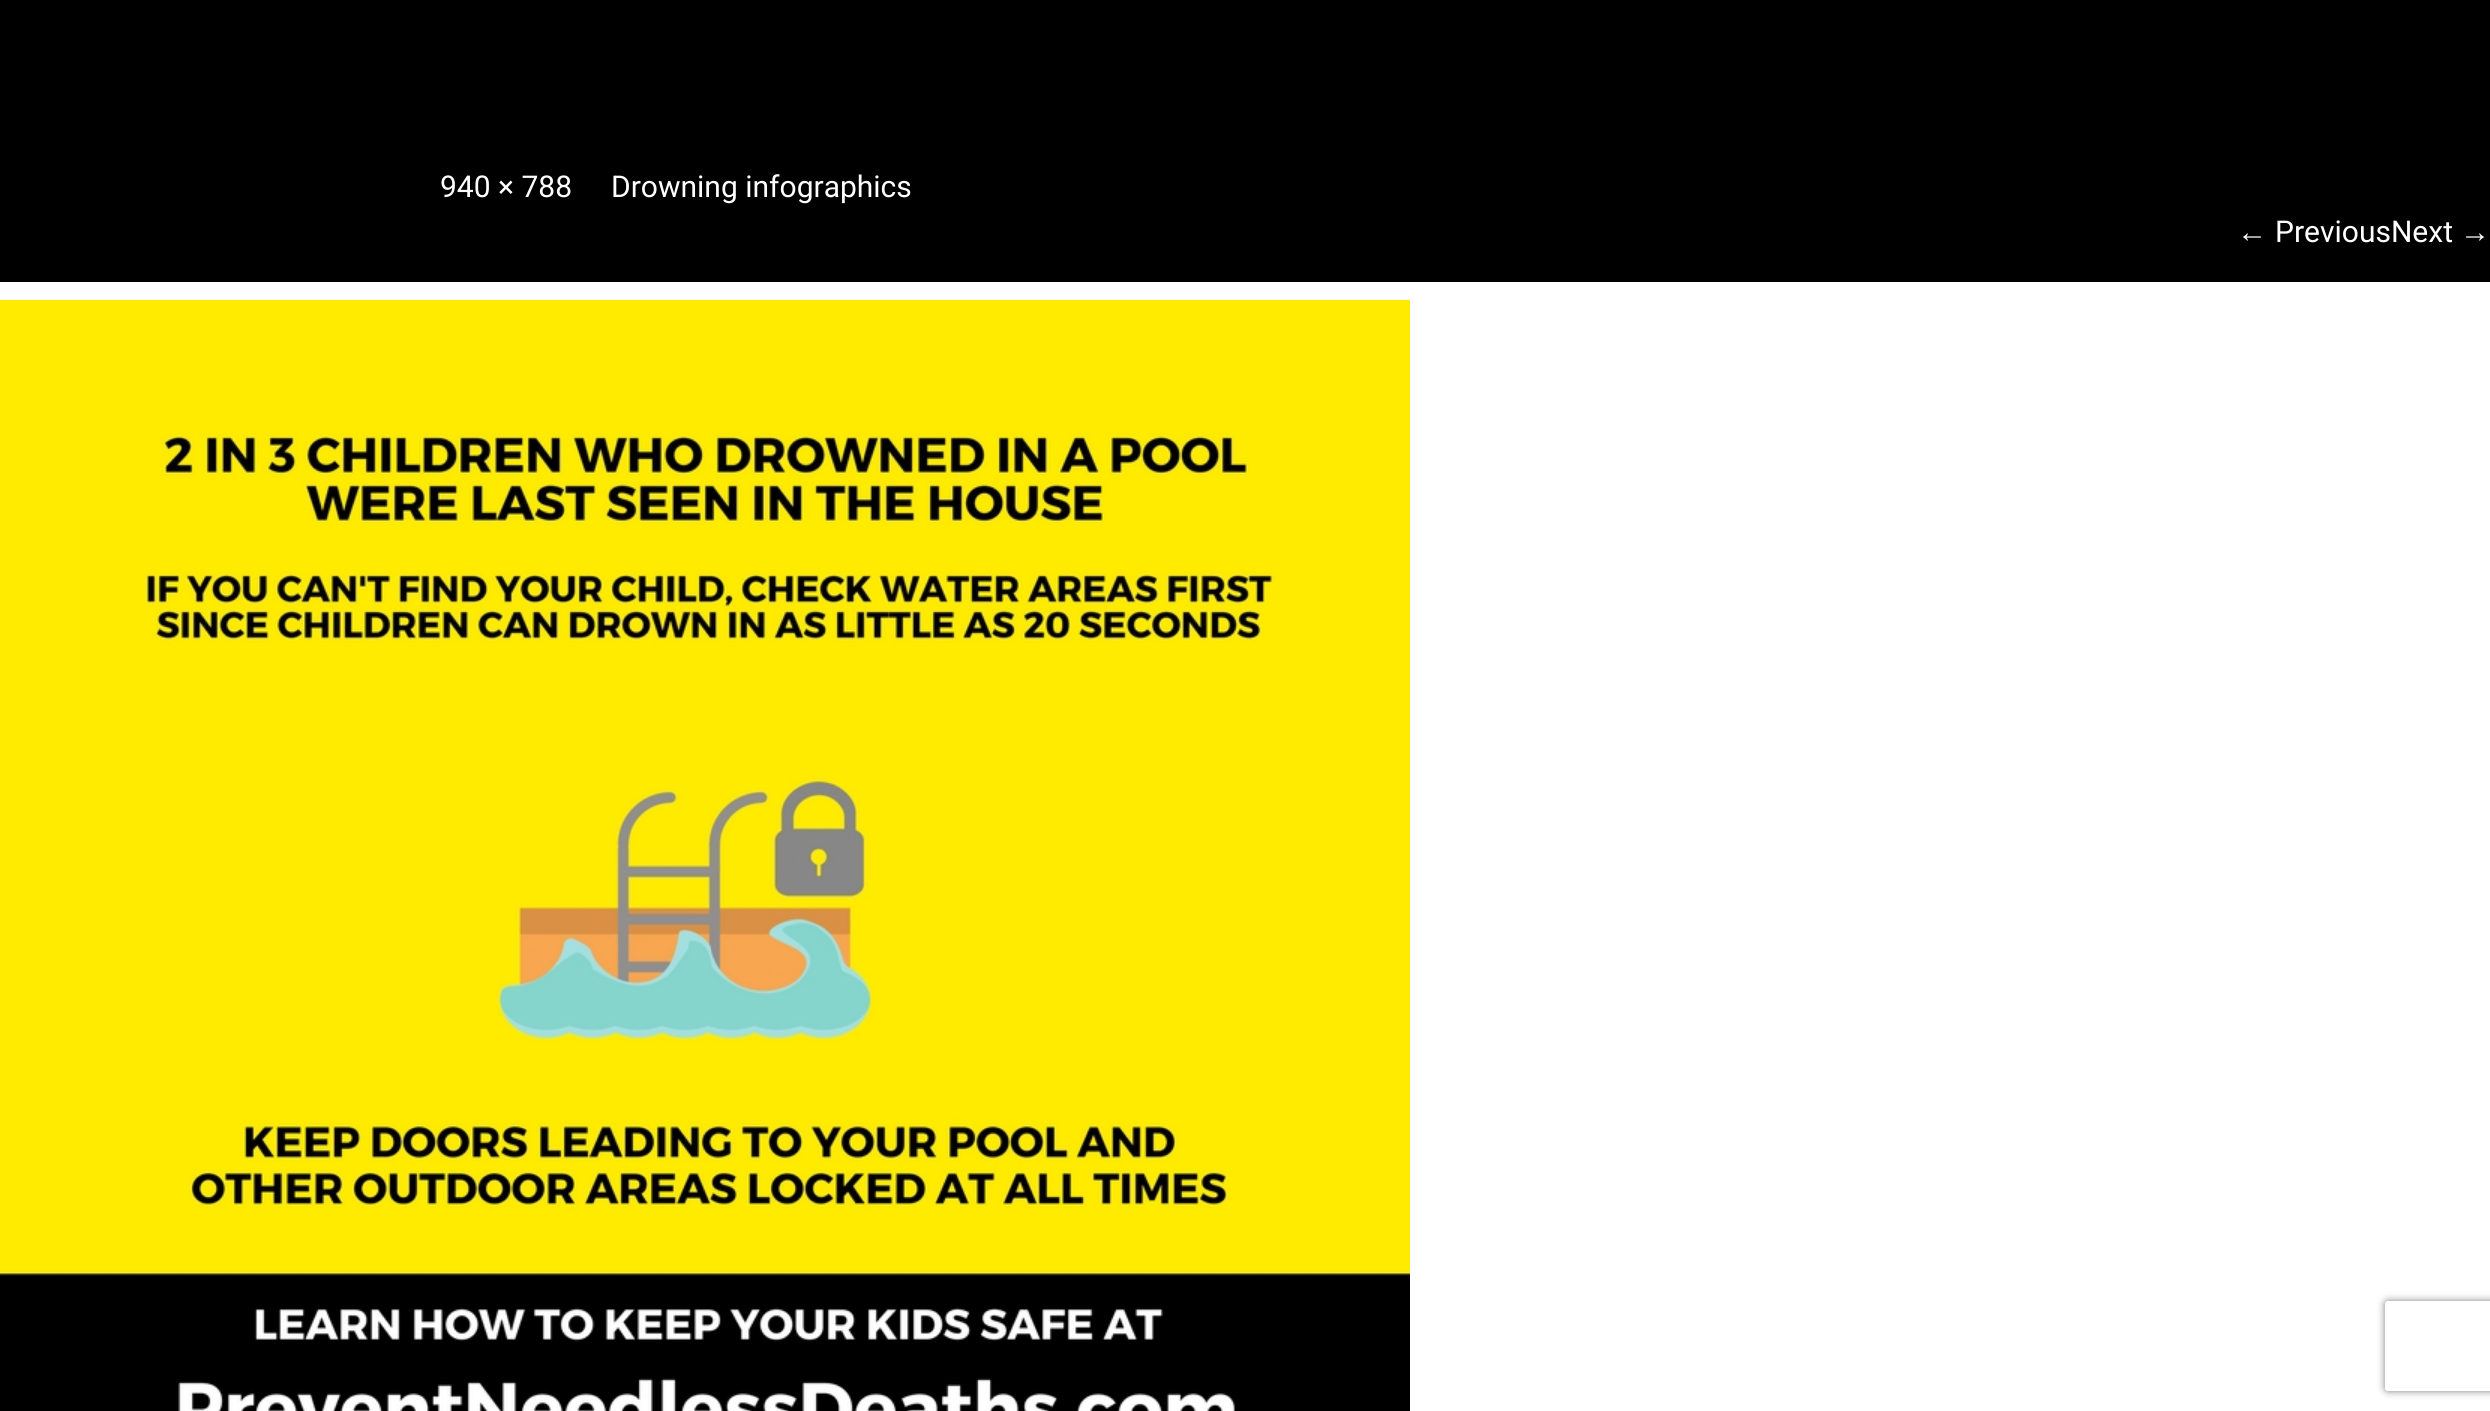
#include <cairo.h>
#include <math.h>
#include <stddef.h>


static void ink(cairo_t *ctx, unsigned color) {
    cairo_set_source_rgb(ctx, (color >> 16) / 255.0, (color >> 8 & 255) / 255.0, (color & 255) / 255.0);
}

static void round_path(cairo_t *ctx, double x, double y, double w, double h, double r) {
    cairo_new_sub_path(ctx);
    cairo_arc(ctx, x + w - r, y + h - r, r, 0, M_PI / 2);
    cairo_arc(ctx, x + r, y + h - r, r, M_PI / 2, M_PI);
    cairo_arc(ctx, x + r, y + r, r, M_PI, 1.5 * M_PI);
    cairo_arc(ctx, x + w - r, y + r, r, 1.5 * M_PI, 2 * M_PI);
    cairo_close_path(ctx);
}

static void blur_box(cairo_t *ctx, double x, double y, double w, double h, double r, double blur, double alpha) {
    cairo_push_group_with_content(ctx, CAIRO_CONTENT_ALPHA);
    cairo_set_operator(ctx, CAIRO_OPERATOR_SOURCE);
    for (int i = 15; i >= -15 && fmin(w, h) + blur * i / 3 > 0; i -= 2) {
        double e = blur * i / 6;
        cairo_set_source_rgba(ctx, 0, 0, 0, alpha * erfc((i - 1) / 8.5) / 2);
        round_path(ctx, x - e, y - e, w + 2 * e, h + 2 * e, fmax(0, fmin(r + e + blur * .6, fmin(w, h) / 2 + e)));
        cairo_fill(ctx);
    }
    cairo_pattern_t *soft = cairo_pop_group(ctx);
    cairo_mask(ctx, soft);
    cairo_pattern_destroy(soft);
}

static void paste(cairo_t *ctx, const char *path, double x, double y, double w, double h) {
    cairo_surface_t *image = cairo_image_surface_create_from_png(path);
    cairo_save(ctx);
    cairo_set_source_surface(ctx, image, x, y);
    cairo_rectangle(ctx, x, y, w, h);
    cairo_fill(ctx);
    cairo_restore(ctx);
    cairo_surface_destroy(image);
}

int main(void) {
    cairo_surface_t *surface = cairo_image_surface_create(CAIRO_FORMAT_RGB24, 2490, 1411);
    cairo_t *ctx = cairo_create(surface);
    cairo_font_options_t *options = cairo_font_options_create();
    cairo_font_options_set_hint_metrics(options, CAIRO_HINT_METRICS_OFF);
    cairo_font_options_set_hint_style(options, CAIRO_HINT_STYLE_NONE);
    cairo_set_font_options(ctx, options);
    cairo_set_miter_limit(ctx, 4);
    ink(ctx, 0xFFFFFF);
    cairo_paint(ctx);
    ink(ctx, 0x000000);
    cairo_rectangle(ctx, 0, 0, 2490, 282);
    cairo_fill(ctx);
    cairo_select_font_face(ctx, "Roboto", CAIRO_FONT_SLANT_NORMAL, CAIRO_FONT_WEIGHT_NORMAL);
    cairo_set_font_size(ctx, 30);
    ink(ctx, 0xFFFFFF);
    cairo_move_to(ctx, 440, 197);
    cairo_show_text(ctx, "940 × 788");
    cairo_move_to(ctx, 611, 197);
    cairo_show_text(ctx, "Drowning infographics");
    cairo_select_font_face(ctx, "Liberation Sans", CAIRO_FONT_SLANT_NORMAL, CAIRO_FONT_WEIGHT_NORMAL);
    cairo_move_to(ctx, 2237, 242);
    cairo_show_text(ctx, "←");
    cairo_select_font_face(ctx, "Roboto", CAIRO_FONT_SLANT_NORMAL, CAIRO_FONT_WEIGHT_NORMAL);
    cairo_move_to(ctx, 2275, 242);
    cairo_show_text(ctx, "PreviousNext");
    cairo_select_font_face(ctx, "Liberation Sans", CAIRO_FONT_SLANT_NORMAL, CAIRO_FONT_WEIGHT_NORMAL);
    cairo_move_to(ctx, 2460, 242);
    cairo_show_text(ctx, "→");
    paste(ctx, "media/1.png", 0, 300, 1410, 1111);
    cairo_save(ctx);
    cairo_set_fill_rule(ctx, CAIRO_FILL_RULE_EVEN_ODD);
    cairo_new_path(ctx);
    cairo_move_to(ctx, 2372, 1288);
    cairo_line_to(ctx, 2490, 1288);
    cairo_line_to(ctx, 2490, 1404);
    cairo_line_to(ctx, 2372, 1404);
    cairo_close_path(ctx);
    cairo_move_to(ctx, 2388, 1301);
    cairo_line_to(ctx, 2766, 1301);
    cairo_curve_to(ctx, 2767.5, 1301, 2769, 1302.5, 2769, 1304);
    cairo_line_to(ctx, 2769, 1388);
    cairo_curve_to(ctx, 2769, 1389.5, 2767.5, 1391, 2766, 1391);
    cairo_line_to(ctx, 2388, 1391);
    cairo_curve_to(ctx, 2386.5, 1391, 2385, 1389.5, 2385, 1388);
    cairo_line_to(ctx, 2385, 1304);
    cairo_curve_to(ctx, 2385, 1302.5, 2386.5, 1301, 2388, 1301);
    cairo_close_path(ctx);
    cairo_clip(ctx);
    ink(ctx, 0x808080);
    blur_box(ctx, 2385, 1301, 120, 90, 3, 4, 1);
    cairo_restore(ctx);
    cairo_surface_write_to_png(surface, "image.png");
    cairo_font_options_destroy(options);
    cairo_destroy(ctx);
    cairo_surface_destroy(surface);
    return 0;
}
